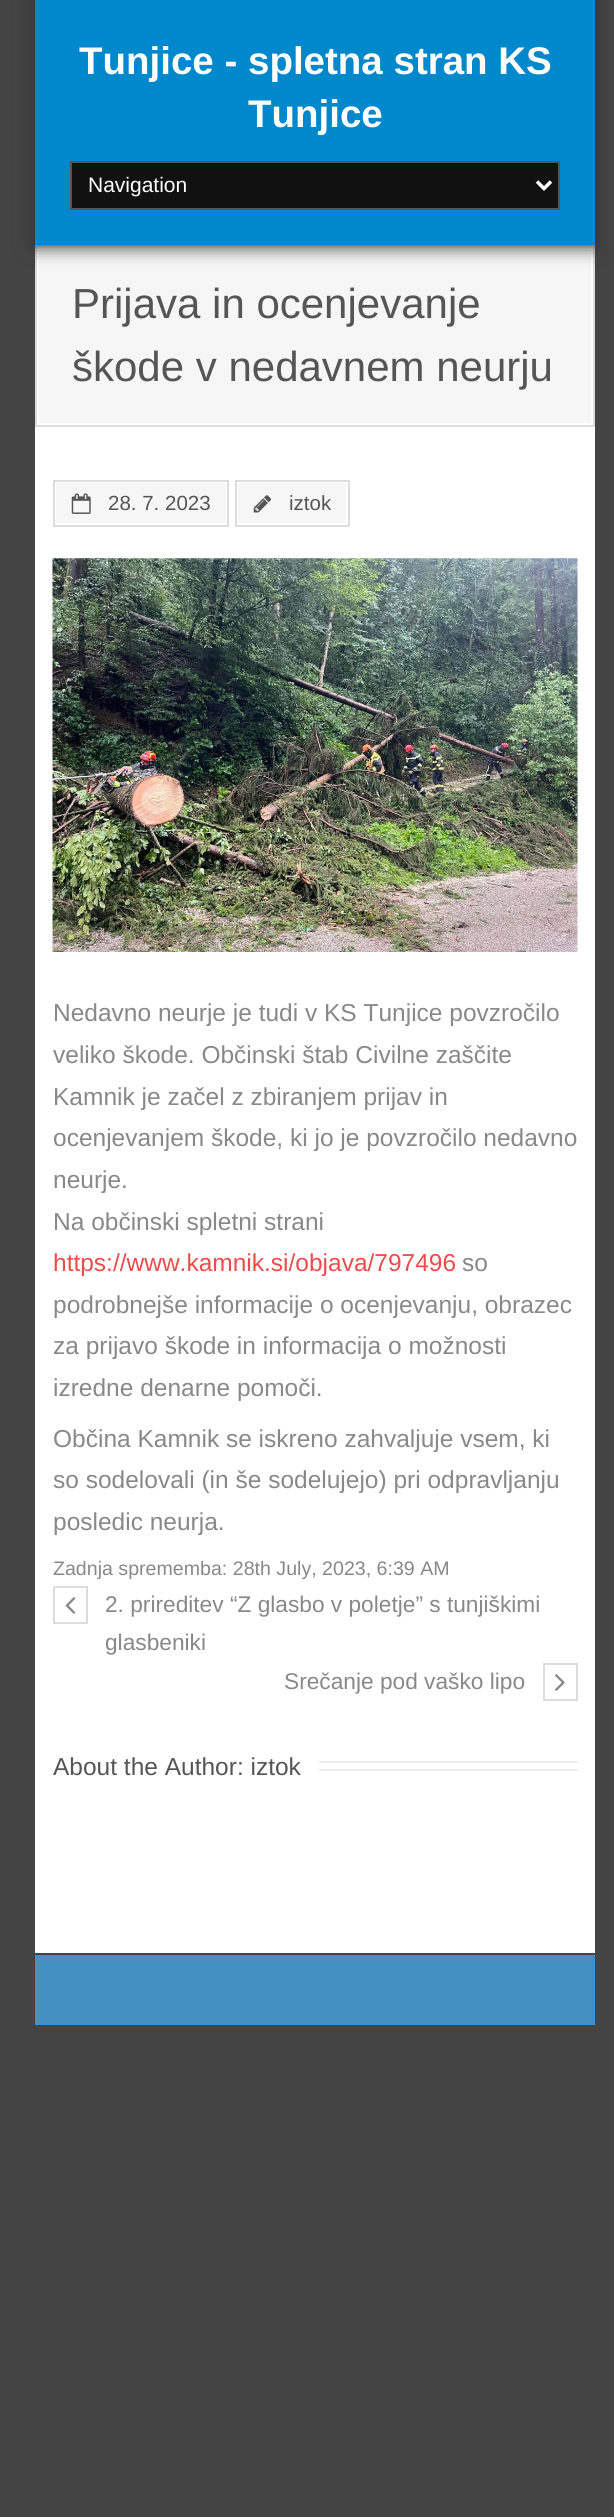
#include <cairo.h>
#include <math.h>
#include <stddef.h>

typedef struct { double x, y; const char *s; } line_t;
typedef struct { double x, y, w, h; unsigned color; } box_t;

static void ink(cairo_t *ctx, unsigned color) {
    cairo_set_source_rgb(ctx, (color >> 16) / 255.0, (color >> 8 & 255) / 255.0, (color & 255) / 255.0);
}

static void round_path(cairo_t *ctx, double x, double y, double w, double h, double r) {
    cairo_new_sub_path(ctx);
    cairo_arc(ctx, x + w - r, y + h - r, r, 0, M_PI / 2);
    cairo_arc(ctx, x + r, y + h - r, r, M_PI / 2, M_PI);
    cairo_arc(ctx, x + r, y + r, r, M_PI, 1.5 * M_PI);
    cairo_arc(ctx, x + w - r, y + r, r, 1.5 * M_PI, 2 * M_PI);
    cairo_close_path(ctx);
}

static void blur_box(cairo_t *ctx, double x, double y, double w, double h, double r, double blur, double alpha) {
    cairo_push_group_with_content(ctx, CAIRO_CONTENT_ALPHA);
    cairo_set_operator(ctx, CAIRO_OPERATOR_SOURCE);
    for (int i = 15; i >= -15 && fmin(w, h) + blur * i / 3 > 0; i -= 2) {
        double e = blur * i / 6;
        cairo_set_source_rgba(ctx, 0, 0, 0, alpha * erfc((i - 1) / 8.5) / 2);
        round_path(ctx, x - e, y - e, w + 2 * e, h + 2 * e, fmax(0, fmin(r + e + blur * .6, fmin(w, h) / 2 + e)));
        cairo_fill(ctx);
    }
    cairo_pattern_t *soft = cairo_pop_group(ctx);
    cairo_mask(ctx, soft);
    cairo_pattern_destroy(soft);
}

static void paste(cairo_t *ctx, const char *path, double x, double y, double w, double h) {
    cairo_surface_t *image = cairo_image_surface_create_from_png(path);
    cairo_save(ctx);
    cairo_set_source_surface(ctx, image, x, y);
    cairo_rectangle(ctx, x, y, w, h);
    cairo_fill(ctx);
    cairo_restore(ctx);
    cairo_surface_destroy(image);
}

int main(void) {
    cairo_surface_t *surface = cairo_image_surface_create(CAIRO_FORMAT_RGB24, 614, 2517);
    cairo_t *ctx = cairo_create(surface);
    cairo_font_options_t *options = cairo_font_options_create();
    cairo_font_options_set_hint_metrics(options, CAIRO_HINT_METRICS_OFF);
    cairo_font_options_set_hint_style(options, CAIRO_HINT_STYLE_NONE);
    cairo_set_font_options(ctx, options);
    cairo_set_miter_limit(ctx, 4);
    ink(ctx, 0x444444);
    cairo_paint(ctx);
    ink(ctx, 0xFFFFFF);
    cairo_rectangle(ctx, 35, 427, 560, 1526);
    cairo_fill(ctx);
    ink(ctx, 0xF6F6F6);
    cairo_rectangle(ctx, 38, 248, 554, 176);
    cairo_fill_preserve(ctx);
    ink(ctx, 0xFFFFFF);
    cairo_stroke(ctx);
    cairo_rectangle(ctx, 36, 246, 558, 180);
    ink(ctx, 0xDDDDDD);
    cairo_stroke(ctx);
    ink(ctx, 0x333333);
    blur_box(ctx, 33, -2, 564, 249, 0, 9, 1);
    ink(ctx, 0x0088CC);
    cairo_rectangle(ctx, 35, 0, 560, 245);
    cairo_fill(ctx);
    cairo_select_font_face(ctx, "Liberation Sans", CAIRO_FONT_SLANT_NORMAL, CAIRO_FONT_WEIGHT_BOLD);
    cairo_set_font_size(ctx, 38.5);
    ink(ctx, 0xFFFFFF);
    cairo_move_to(ctx, 79, 74);
    cairo_show_text(ctx, "Tunjice - spletna stran KS");
    cairo_move_to(ctx, 248, 127);
    cairo_show_text(ctx, "Tunjice");
    ink(ctx, 0x111111);
    cairo_rectangle(ctx, 71, 162, 488, 47);
    cairo_fill_preserve(ctx);
    ink(ctx, 0x555555);
    cairo_stroke(ctx);
    cairo_new_path(ctx);
    cairo_move_to(ctx, 537, 181.5);
    cairo_line_to(ctx, 544, 188.5);
    cairo_line_to(ctx, 551, 181.5);
    ink(ctx, 0xFFFFFF);
    cairo_set_line_width(ctx, 3.5);
    cairo_stroke(ctx);
    cairo_select_font_face(ctx, "Liberation Sans", CAIRO_FONT_SLANT_NORMAL, CAIRO_FONT_WEIGHT_NORMAL);
    cairo_set_font_size(ctx, 21);
    cairo_move_to(ctx, 88, 192);
    cairo_show_text(ctx, "Navigation");
    cairo_set_font_size(ctx, 42);
    ink(ctx, 0x555555);
    cairo_move_to(ctx, 72, 318);
    cairo_show_text(ctx, "Prijava in ocenjevanje");
    cairo_move_to(ctx, 72, 381);
    cairo_show_text(ctx, "škode v nedavnem neurju");
    ink(ctx, 0xF6F6F6);
    cairo_rectangle(ctx, 56, 483, 170, 40);
    cairo_fill(ctx);
    cairo_rectangle(ctx, 54, 481, 174, 45);
    ink(ctx, 0xDDDDDD);
    cairo_set_line_width(ctx, 2);
    cairo_stroke(ctx);
    paste(ctx, "media/1.png", 71, 493, 20, 21);
    cairo_set_font_size(ctx, 20.5);
    ink(ctx, 0x555555);
    cairo_move_to(ctx, 108, 510);
    cairo_show_text(ctx, "28. 7. 2023");
    ink(ctx, 0xF6F6F6);
    cairo_rectangle(ctx, 238, 483, 108, 40);
    cairo_fill(ctx);
    cairo_rectangle(ctx, 236, 481, 113, 45);
    ink(ctx, 0xDDDDDD);
    cairo_stroke(ctx);
    paste(ctx, "media/2.png", 253, 495, 18, 18);
    ink(ctx, 0x555555);
    cairo_move_to(ctx, 289, 510);
    cairo_show_text(ctx, "iztok");
    paste(ctx, "media/3.png", 52, 558, 526, 394);
    cairo_set_font_size(ctx, 24.5);
    ink(ctx, 0x888888);
    {
        static const line_t items[] = {
            {53, 1021, "Nedavno neurje je tudi v KS Tunjice povzročilo"},
            {53, 1063, "veliko škode. Občinski štab Civilne zaščite"},
            {53, 1105, "Kamnik je začel z zbiranjem prijav in"},
            {53, 1146, "ocenjevanjem škode, ki jo je povzročilo nedavno"},
            {53, 1188, "neurje."},
            {53, 1230, "Na občinski spletni strani"},
        };
        for (size_t i = 0; i < sizeof items / sizeof *items; i++) {
            cairo_move_to(ctx, items[i].x, items[i].y);
            cairo_show_text(ctx, items[i].s);
        }
    }
    ink(ctx, 0xEC4C4C);
    cairo_move_to(ctx, 53, 1271);
    cairo_show_text(ctx, "https://www.kamnik.si/objava/797496");
    ink(ctx, 0x888888);
    {
        static const line_t items[] = {
            {462, 1271, "so"},
            {53, 1313, "podrobnejše informacije o ocenjevanju, obrazec"},
            {53, 1354, "za prijavo škode in informacija o možnosti"},
            {53, 1396, "izredne denarne pomoči."},
            {53, 1447, "Občina Kamnik se iskreno zahvaljuje vsem, ki"},
            {53, 1488, "so sodelovali (in še sodelujejo) pri odpravljanju"},
            {53, 1530, "posledic neurja."},
        };
        for (size_t i = 0; i < sizeof items / sizeof *items; i++) {
            cairo_move_to(ctx, items[i].x, items[i].y);
            cairo_show_text(ctx, items[i].s);
        }
    }
    cairo_set_font_size(ctx, 19.6);
    cairo_move_to(ctx, 53, 1575);
    cairo_show_text(ctx, "Zadnja sprememba: 28th July, 2023, 6:39 AM");
    cairo_rectangle(ctx, 54, 1587, 33, 36);
    ink(ctx, 0xDDDDDD);
    cairo_stroke(ctx);
    paste(ctx, "media/4.png", 65, 1597, 11, 17);
    cairo_set_font_size(ctx, 22.7);
    ink(ctx, 0x888888);
    {
        static const line_t items[] = {
            {105, 1612, "2. prireditev “Z glasbo v poletje” s tunjiškimi"},
            {105, 1650, "glasbeniki"},
            {284, 1689, "Srečanje pod vaško lipo"},
        };
        for (size_t i = 0; i < sizeof items / sizeof *items; i++) {
            cairo_move_to(ctx, items[i].x, items[i].y);
            cairo_show_text(ctx, items[i].s);
        }
    }
    cairo_rectangle(ctx, 544, 1664, 33, 36);
    ink(ctx, 0xDDDDDD);
    cairo_stroke(ctx);
    paste(ctx, "media/5.png", 555, 1674, 10, 17);
    cairo_set_font_size(ctx, 24.5);
    ink(ctx, 0x555555);
    cairo_move_to(ctx, 53, 1775);
    cairo_show_text(ctx, "About the Author: iztok");
    {
        static const box_t items[] = {
            {319, 1761, 259, 2, 0xEEEEEE},
            {319, 1769, 259, 2, 0xEEEEEE},
            {35, 1955, 560, 70, 0x4590C2},
        };
        for (size_t i = 0; i < sizeof items / sizeof *items; i++) {
            ink(ctx, items[i].color);
            cairo_rectangle(ctx, items[i].x, items[i].y, items[i].w, items[i].h);
            cairo_fill(ctx);
        }
    }
    cairo_surface_write_to_png(surface, "image.png");
    cairo_font_options_destroy(options);
    cairo_destroy(ctx);
    cairo_surface_destroy(surface);
    return 0;
}
